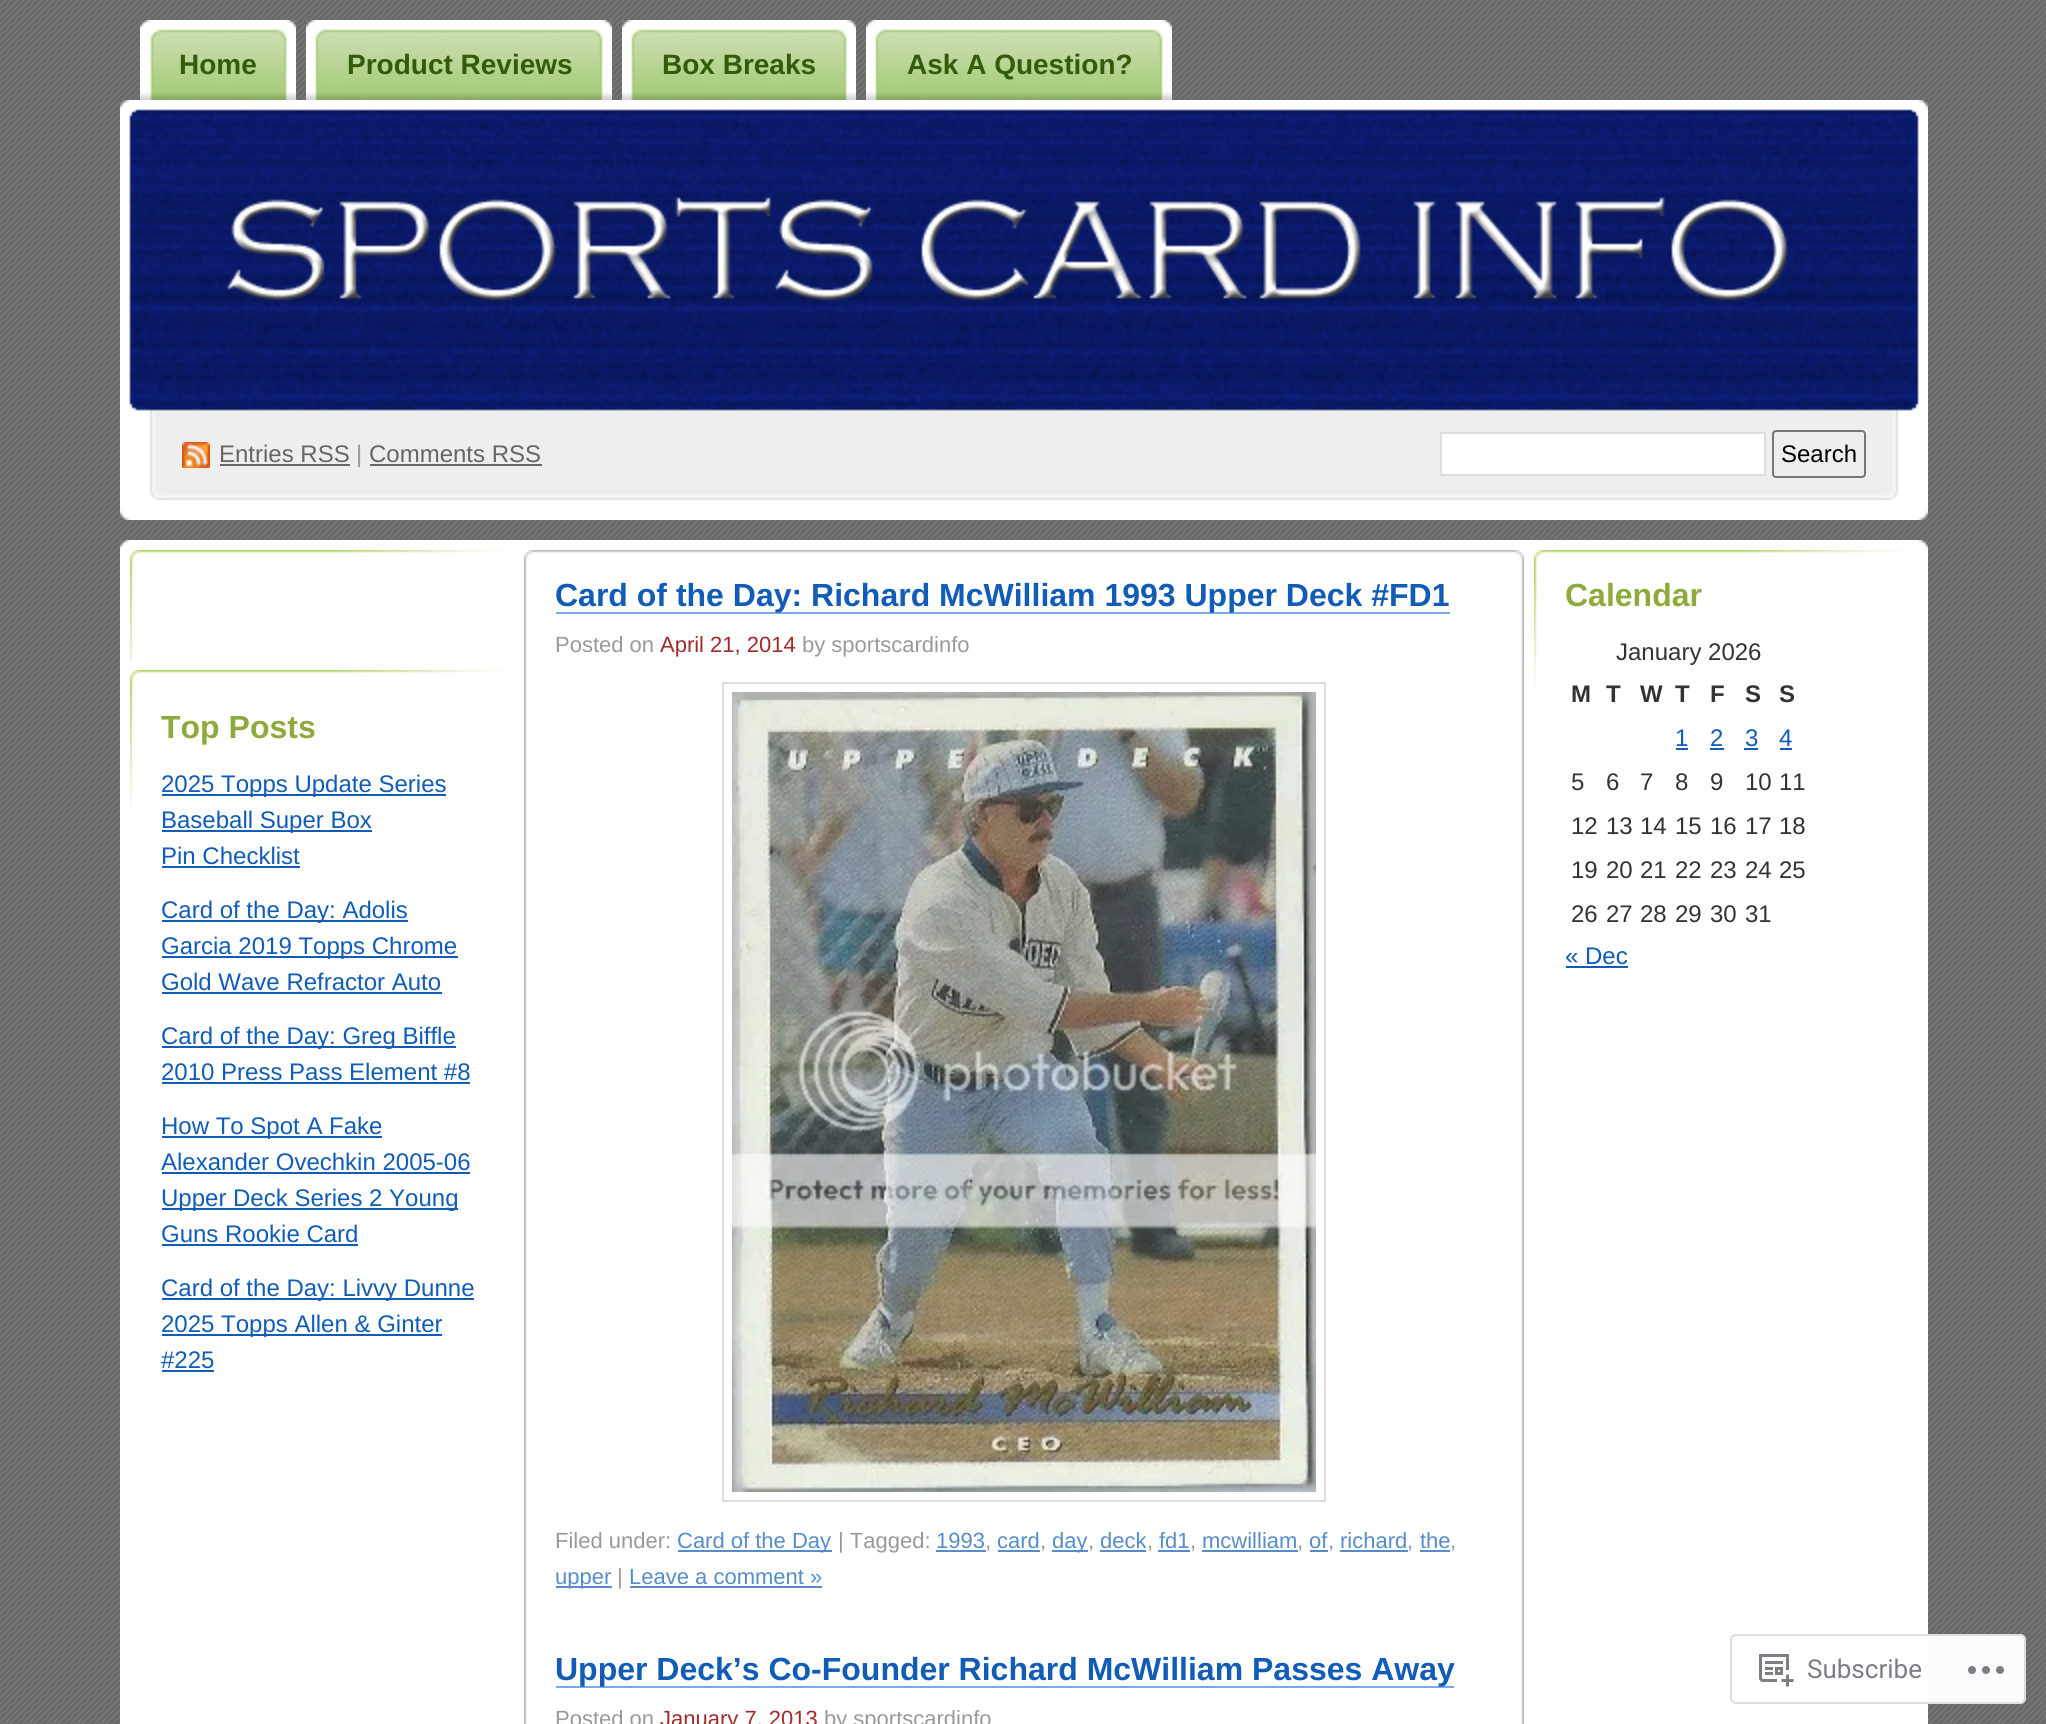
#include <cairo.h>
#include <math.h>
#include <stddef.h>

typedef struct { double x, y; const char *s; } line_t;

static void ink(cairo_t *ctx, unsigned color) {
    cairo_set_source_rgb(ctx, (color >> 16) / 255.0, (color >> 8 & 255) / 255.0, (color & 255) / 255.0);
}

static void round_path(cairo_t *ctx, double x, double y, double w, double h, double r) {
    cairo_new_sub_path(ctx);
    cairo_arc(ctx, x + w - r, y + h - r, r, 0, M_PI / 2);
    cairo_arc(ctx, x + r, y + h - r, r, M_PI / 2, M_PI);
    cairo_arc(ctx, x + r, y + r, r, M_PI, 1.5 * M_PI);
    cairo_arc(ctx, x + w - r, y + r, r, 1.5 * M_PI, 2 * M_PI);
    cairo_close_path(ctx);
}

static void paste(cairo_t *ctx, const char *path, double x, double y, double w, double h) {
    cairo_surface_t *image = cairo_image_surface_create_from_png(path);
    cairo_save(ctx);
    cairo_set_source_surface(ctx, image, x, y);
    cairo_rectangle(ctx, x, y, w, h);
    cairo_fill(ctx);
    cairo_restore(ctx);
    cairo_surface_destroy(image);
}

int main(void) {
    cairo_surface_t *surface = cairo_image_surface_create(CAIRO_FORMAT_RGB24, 2046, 1724);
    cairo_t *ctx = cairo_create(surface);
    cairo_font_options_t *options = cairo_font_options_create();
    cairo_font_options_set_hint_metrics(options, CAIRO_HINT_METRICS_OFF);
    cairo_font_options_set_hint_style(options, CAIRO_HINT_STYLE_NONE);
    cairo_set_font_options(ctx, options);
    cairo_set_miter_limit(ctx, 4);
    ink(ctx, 0xFFFFFF);
    cairo_paint(ctx);
    paste(ctx, "media/1.png", 0, 0, 2046, 1724);
    paste(ctx, "media/2.png", 162, 20, 134, 80);
    paste(ctx, "media/3.png", 140, 20, 22, 80);
    cairo_select_font_face(ctx, "Liberation Sans", CAIRO_FONT_SLANT_NORMAL, CAIRO_FONT_WEIGHT_BOLD);
    cairo_set_font_size(ctx, 28);
    ink(ctx, 0x325B0A);
    cairo_move_to(ctx, 179, 74);
    cairo_show_text(ctx, "Home");
    paste(ctx, "media/4.png", 326, 20, 286, 80);
    paste(ctx, "media/5.png", 306, 20, 20, 80);
    cairo_move_to(ctx, 347, 74);
    cairo_show_text(ctx, "Product Reviews");
    paste(ctx, "media/6.png", 642, 20, 214, 80);
    paste(ctx, "media/5.png", 622, 20, 20, 80);
    cairo_move_to(ctx, 662, 74);
    cairo_show_text(ctx, "Box Breaks");
    paste(ctx, "media/7.png", 886, 20, 286, 80);
    paste(ctx, "media/5.png", 866, 20, 20, 80);
    cairo_move_to(ctx, 907, 74);
    cairo_show_text(ctx, "Ask A Question?");
    paste(ctx, "media/9.png", 129, 109, 1790, 302);
    paste(ctx, "media/8.png", 120, 100, 1808, 420);
    paste(ctx, "media/10.png", 182, 442, 28, 26);
    cairo_select_font_face(ctx, "Liberation Sans", CAIRO_FONT_SLANT_NORMAL, CAIRO_FONT_WEIGHT_NORMAL);
    cairo_set_font_size(ctx, 24);
    ink(ctx, 0x666666);
    cairo_move_to(ctx, 219, 462);
    cairo_show_text(ctx, "Entries RSS");
    cairo_rectangle(ctx, 220, 464, 130, 2);
    cairo_fill(ctx);
    ink(ctx, 0x999999);
    cairo_move_to(ctx, 356, 462);
    cairo_show_text(ctx, "|");
    ink(ctx, 0x666666);
    cairo_move_to(ctx, 369, 462);
    cairo_show_text(ctx, "Comments RSS");
    cairo_rectangle(ctx, 370, 464, 172, 2);
    cairo_fill(ctx);
    ink(ctx, 0xFFFFFF);
    cairo_rectangle(ctx, 1441, 433, 324, 42);
    cairo_fill_preserve(ctx);
    ink(ctx, 0xDDDDDD);
    cairo_stroke(ctx);
    round_path(ctx, 1773, 431, 92, 46, 3);
    ink(ctx, 0x767676);
    cairo_stroke(ctx);
    ink(ctx, 0x000000);
    cairo_move_to(ctx, 1781, 462);
    cairo_show_text(ctx, "Search");
    ink(ctx, 0xFFFFFF);
    cairo_rectangle(ctx, 120, 550, 1808, 1174);
    cairo_fill(ctx);
    paste(ctx, "media/11.png", 120, 540, 1808, 10);
    paste(ctx, "media/12.png", 130, 550, 377, 110);
    paste(ctx, "media/13.png", 130, 670, 377, 145);
    cairo_select_font_face(ctx, "Liberation Sans", CAIRO_FONT_SLANT_NORMAL, CAIRO_FONT_WEIGHT_BOLD);
    cairo_set_font_size(ctx, 32);
    ink(ctx, 0x8DAB3B);
    cairo_move_to(ctx, 161, 738);
    cairo_show_text(ctx, "Top Posts");
    ink(ctx, 0x105CB6);
    cairo_rectangle(ctx, 162, 794, 284, 2);
    cairo_fill(ctx);
    cairo_select_font_face(ctx, "Liberation Sans", CAIRO_FONT_SLANT_NORMAL, CAIRO_FONT_WEIGHT_NORMAL);
    cairo_set_font_size(ctx, 24);
    cairo_move_to(ctx, 161, 792);
    cairo_show_text(ctx, "2025 Topps Update Series");
    cairo_rectangle(ctx, 162, 830, 210, 2);
    cairo_fill(ctx);
    cairo_move_to(ctx, 161, 828);
    cairo_show_text(ctx, "Baseball Super Box");
    cairo_move_to(ctx, 161, 864);
    cairo_show_text(ctx, "Pin Checklist");
    cairo_rectangle(ctx, 162, 866, 138, 2);
    cairo_fill(ctx);
    cairo_rectangle(ctx, 162, 920, 246, 2);
    cairo_fill(ctx);
    cairo_move_to(ctx, 161, 918);
    cairo_show_text(ctx, "Card of the Day: Adolis");
    cairo_rectangle(ctx, 162, 956, 296, 2);
    cairo_fill(ctx);
    cairo_move_to(ctx, 161, 954);
    cairo_show_text(ctx, "Garcia 2019 Topps Chrome");
    cairo_move_to(ctx, 161, 990);
    cairo_show_text(ctx, "Gold Wave Refractor Auto");
    cairo_rectangle(ctx, 162, 992, 280, 2);
    cairo_fill(ctx);
    cairo_rectangle(ctx, 162, 1046, 294, 2);
    cairo_fill(ctx);
    cairo_move_to(ctx, 161, 1044);
    cairo_show_text(ctx, "Card of the Day: Greg Biffle");
    cairo_move_to(ctx, 161, 1080);
    cairo_show_text(ctx, "2010 Press Pass Element #8");
    cairo_rectangle(ctx, 162, 1082, 308, 2);
    cairo_fill(ctx);
    cairo_rectangle(ctx, 162, 1136, 220, 2);
    cairo_fill(ctx);
    cairo_move_to(ctx, 161, 1134);
    cairo_show_text(ctx, "How To Spot A Fake");
    cairo_move_to(ctx, 161, 1170);
    cairo_show_text(ctx, "Alexander Ovechkin 2005-06");
    cairo_rectangle(ctx, 162, 1172, 308, 2);
    cairo_fill(ctx);
    cairo_rectangle(ctx, 162, 1208, 296, 2);
    cairo_fill(ctx);
    cairo_move_to(ctx, 161, 1206);
    cairo_show_text(ctx, "Upper Deck Series 2 Young");
    cairo_move_to(ctx, 161, 1242);
    cairo_show_text(ctx, "Guns Rookie Card");
    cairo_rectangle(ctx, 162, 1244, 196, 2);
    cairo_fill(ctx);
    cairo_rectangle(ctx, 162, 1298, 312, 2);
    cairo_fill(ctx);
    cairo_move_to(ctx, 161, 1296);
    cairo_show_text(ctx, "Card of the Day: Livvy Dunne");
    cairo_rectangle(ctx, 162, 1334, 280, 2);
    cairo_fill(ctx);
    cairo_move_to(ctx, 161, 1332);
    cairo_show_text(ctx, "2025 Topps Allen & Ginter");
    cairo_move_to(ctx, 161, 1368);
    cairo_show_text(ctx, "#225");
    cairo_rectangle(ctx, 162, 1370, 52, 2);
    cairo_fill(ctx);
    paste(ctx, "media/14.png", 524, 559, 1000, 1165);
    paste(ctx, "media/15.png", 524, 550, 1000, 9);
    ink(ctx, 0x75ABEA);
    cairo_rectangle(ctx, 556, 612, 894, 2);
    cairo_fill(ctx);
    cairo_select_font_face(ctx, "Liberation Sans", CAIRO_FONT_SLANT_NORMAL, CAIRO_FONT_WEIGHT_BOLD);
    cairo_set_font_size(ctx, 32);
    ink(ctx, 0x105CB6);
    cairo_move_to(ctx, 555, 606);
    cairo_show_text(ctx, "Card of the Day: Richard McWilliam 1993 Upper Deck #FD1");
    cairo_select_font_face(ctx, "Liberation Sans", CAIRO_FONT_SLANT_NORMAL, CAIRO_FONT_WEIGHT_NORMAL);
    cairo_set_font_size(ctx, 22);
    ink(ctx, 0x999999);
    cairo_move_to(ctx, 555, 652);
    cairo_show_text(ctx, "Posted on");
    ink(ctx, 0xA12A2A);
    cairo_move_to(ctx, 660, 652);
    cairo_show_text(ctx, "April 21, 2014");
    ink(ctx, 0x999999);
    cairo_move_to(ctx, 802, 652);
    cairo_show_text(ctx, "by sportscardinfo");
    cairo_rectangle(ctx, 723, 683, 602, 818);
    ink(ctx, 0xDDDDDD);
    cairo_stroke(ctx);
    paste(ctx, "media/16.png", 732, 692, 584, 800);
    ink(ctx, 0x999999);
    cairo_move_to(ctx, 555, 1548);
    cairo_show_text(ctx, "Filed under:");
    ink(ctx, 0x578CCA);
    cairo_rectangle(ctx, 678, 1550, 154, 2);
    cairo_fill(ctx);
    cairo_move_to(ctx, 677, 1548);
    cairo_show_text(ctx, "Card of the Day");
    ink(ctx, 0x999999);
    cairo_move_to(ctx, 838, 1548);
    cairo_show_text(ctx, "| Tagged:");
    ink(ctx, 0x578CCA);
    cairo_move_to(ctx, 936, 1548);
    cairo_show_text(ctx, "1993");
    cairo_rectangle(ctx, 936, 1550, 50, 2);
    cairo_fill(ctx);
    ink(ctx, 0x999999);
    cairo_move_to(ctx, 985, 1548);
    cairo_show_text(ctx, ",");
    ink(ctx, 0x578CCA);
    cairo_move_to(ctx, 997, 1548);
    cairo_show_text(ctx, "card");
    cairo_rectangle(ctx, 998, 1550, 42, 2);
    cairo_fill(ctx);
    ink(ctx, 0x999999);
    cairo_move_to(ctx, 1040, 1548);
    cairo_show_text(ctx, ",");
    ink(ctx, 0x578CCA);
    cairo_rectangle(ctx, 1052, 1550, 36, 2);
    cairo_fill(ctx);
    cairo_move_to(ctx, 1052, 1548);
    cairo_show_text(ctx, "day");
    ink(ctx, 0x999999);
    cairo_move_to(ctx, 1088, 1548);
    cairo_show_text(ctx, ",");
    ink(ctx, 0x578CCA);
    cairo_move_to(ctx, 1100, 1548);
    cairo_show_text(ctx, "deck");
    cairo_rectangle(ctx, 1100, 1550, 46, 2);
    cairo_fill(ctx);
    ink(ctx, 0x999999);
    cairo_move_to(ctx, 1147, 1548);
    cairo_show_text(ctx, ",");
    ink(ctx, 0x578CCA);
    cairo_move_to(ctx, 1159, 1548);
    cairo_show_text(ctx, "fd1");
    cairo_rectangle(ctx, 1158, 1550, 32, 2);
    cairo_fill(ctx);
    ink(ctx, 0x999999);
    cairo_move_to(ctx, 1190, 1548);
    cairo_show_text(ctx, ",");
    ink(ctx, 0x578CCA);
    cairo_move_to(ctx, 1202, 1548);
    cairo_show_text(ctx, "mcwilliam");
    cairo_rectangle(ctx, 1202, 1550, 96, 2);
    cairo_fill(ctx);
    ink(ctx, 0x999999);
    cairo_move_to(ctx, 1297, 1548);
    cairo_show_text(ctx, ",");
    ink(ctx, 0x578CCA);
    cairo_move_to(ctx, 1309, 1548);
    cairo_show_text(ctx, "of");
    cairo_rectangle(ctx, 1310, 1550, 18, 2);
    cairo_fill(ctx);
    ink(ctx, 0x999999);
    cairo_move_to(ctx, 1328, 1548);
    cairo_show_text(ctx, ",");
    ink(ctx, 0x578CCA);
    cairo_move_to(ctx, 1340, 1548);
    cairo_show_text(ctx, "richard");
    cairo_rectangle(ctx, 1340, 1550, 68, 2);
    cairo_fill(ctx);
    ink(ctx, 0x999999);
    cairo_move_to(ctx, 1407, 1548);
    cairo_show_text(ctx, ",");
    ink(ctx, 0x578CCA);
    cairo_move_to(ctx, 1420, 1548);
    cairo_show_text(ctx, "the");
    cairo_rectangle(ctx, 1420, 1550, 30, 2);
    cairo_fill(ctx);
    ink(ctx, 0x999999);
    cairo_move_to(ctx, 1450, 1548);
    cairo_show_text(ctx, ",");
    ink(ctx, 0x578CCA);
    cairo_rectangle(ctx, 556, 1586, 56, 2);
    cairo_fill(ctx);
    cairo_move_to(ctx, 555, 1584);
    cairo_show_text(ctx, "upper");
    ink(ctx, 0x999999);
    cairo_move_to(ctx, 617, 1584);
    cairo_show_text(ctx, "|");
    ink(ctx, 0x578CCA);
    cairo_move_to(ctx, 629, 1584);
    cairo_show_text(ctx, "Leave a comment »");
    cairo_rectangle(ctx, 630, 1586, 192, 2);
    cairo_fill(ctx);
    ink(ctx, 0x75ABEA);
    cairo_rectangle(ctx, 556, 1686, 898, 2);
    cairo_fill(ctx);
    cairo_select_font_face(ctx, "Liberation Sans", CAIRO_FONT_SLANT_NORMAL, CAIRO_FONT_WEIGHT_BOLD);
    cairo_set_font_size(ctx, 32);
    ink(ctx, 0x105CB6);
    cairo_move_to(ctx, 555, 1680);
    cairo_show_text(ctx, "Upper Deck’s Co-Founder Richard McWilliam Passes Away");
    cairo_select_font_face(ctx, "Liberation Sans", CAIRO_FONT_SLANT_NORMAL, CAIRO_FONT_WEIGHT_NORMAL);
    cairo_set_font_size(ctx, 22);
    ink(ctx, 0x999999);
    cairo_move_to(ctx, 555, 1726);
    cairo_show_text(ctx, "Posted on");
    ink(ctx, 0xA12A2A);
    cairo_move_to(ctx, 660, 1726);
    cairo_show_text(ctx, "January 7, 2013");
    ink(ctx, 0x999999);
    cairo_move_to(ctx, 824, 1726);
    cairo_show_text(ctx, "by sportscardinfo");
    paste(ctx, "media/13.png", 1534, 550, 377, 145);
    cairo_select_font_face(ctx, "Liberation Sans", CAIRO_FONT_SLANT_NORMAL, CAIRO_FONT_WEIGHT_BOLD);
    cairo_set_font_size(ctx, 32);
    ink(ctx, 0x8DAB3B);
    cairo_move_to(ctx, 1565, 606);
    cairo_show_text(ctx, "Calendar");
    cairo_select_font_face(ctx, "Liberation Sans", CAIRO_FONT_SLANT_NORMAL, CAIRO_FONT_WEIGHT_NORMAL);
    cairo_set_font_size(ctx, 24);
    ink(ctx, 0x333333);
    cairo_move_to(ctx, 1616, 660);
    cairo_show_text(ctx, "January 2026");
    cairo_select_font_face(ctx, "Liberation Sans", CAIRO_FONT_SLANT_NORMAL, CAIRO_FONT_WEIGHT_BOLD);
    {
        static const line_t items[] = {
            {1571, 702, "M"},
            {1606, 702, "T"},
            {1640, 702, "W"},
            {1675, 702, "T"},
            {1710, 702, "F"},
            {1745, 702, "S"},
            {1779, 702, "S"},
        };
        for (size_t i = 0; i < sizeof items / sizeof *items; i++) {
            cairo_move_to(ctx, items[i].x, items[i].y);
            cairo_show_text(ctx, items[i].s);
        }
    }
    cairo_select_font_face(ctx, "Liberation Sans", CAIRO_FONT_SLANT_NORMAL, CAIRO_FONT_WEIGHT_NORMAL);
    ink(ctx, 0x105CB6);
    cairo_move_to(ctx, 1675, 746);
    cairo_show_text(ctx, "1");
    cairo_rectangle(ctx, 1676, 748, 12, 2);
    cairo_fill(ctx);
    cairo_move_to(ctx, 1710, 746);
    cairo_show_text(ctx, "2");
    cairo_rectangle(ctx, 1710, 748, 14, 2);
    cairo_fill(ctx);
    cairo_move_to(ctx, 1745, 746);
    cairo_show_text(ctx, "3");
    cairo_rectangle(ctx, 1744, 748, 14, 2);
    cairo_fill(ctx);
    cairo_move_to(ctx, 1779, 746);
    cairo_show_text(ctx, "4");
    cairo_rectangle(ctx, 1780, 748, 12, 2);
    cairo_fill(ctx);
    ink(ctx, 0x333333);
    {
        static const line_t items[] = {
            {1571, 790, "5"},
            {1606, 790, "6"},
            {1640, 790, "7"},
            {1675, 790, "8"},
            {1710, 790, "9"},
            {1745, 790, "10"},
            {1779, 790, "11"},
            {1571, 834, "12"},
            {1606, 834, "13"},
            {1640, 834, "14"},
            {1675, 834, "15"},
            {1710, 834, "16"},
            {1745, 834, "17"},
            {1779, 834, "18"},
            {1571, 878, "19"},
            {1606, 878, "20"},
            {1640, 878, "21"},
            {1675, 878, "22"},
            {1710, 878, "23"},
            {1745, 878, "24"},
            {1779, 878, "25"},
            {1571, 922, "26"},
            {1606, 922, "27"},
            {1640, 922, "28"},
            {1675, 922, "29"},
            {1710, 922, "30"},
            {1745, 922, "31"},
        };
        for (size_t i = 0; i < sizeof items / sizeof *items; i++) {
            cairo_move_to(ctx, items[i].x, items[i].y);
            cairo_show_text(ctx, items[i].s);
        }
    }
    ink(ctx, 0x105CB6);
    cairo_move_to(ctx, 1565, 964);
    cairo_show_text(ctx, "« Dec");
    cairo_rectangle(ctx, 1566, 966, 62, 2);
    cairo_fill(ctx);
    cairo_set_source_rgba(ctx, 1, 1, 1, 0.98);
    round_path(ctx, 1730, 1634, 296, 70, 6);
    cairo_fill(ctx);
    round_path(ctx, 1731, 1635, 294, 68, 5);
    cairo_set_source_rgba(ctx, 0.863, 0.863, 0.871, 0.98);
    cairo_stroke(ctx);
    paste(ctx, "media/17.png", 1759, 1654, 35, 33);
    cairo_select_font_face(ctx, "Roboto", CAIRO_FONT_SLANT_NORMAL, CAIRO_FONT_WEIGHT_NORMAL);
    cairo_set_font_size(ctx, 26);
    ink(ctx, 0x7B7F85);
    cairo_move_to(ctx, 1807, 1678);
    cairo_show_text(ctx, "Subscribe");
    paste(ctx, "media/18.png", 1968, 1666, 36, 8);
    cairo_surface_write_to_png(surface, "image.png");
    cairo_font_options_destroy(options);
    cairo_destroy(ctx);
    cairo_surface_destroy(surface);
    return 0;
}
